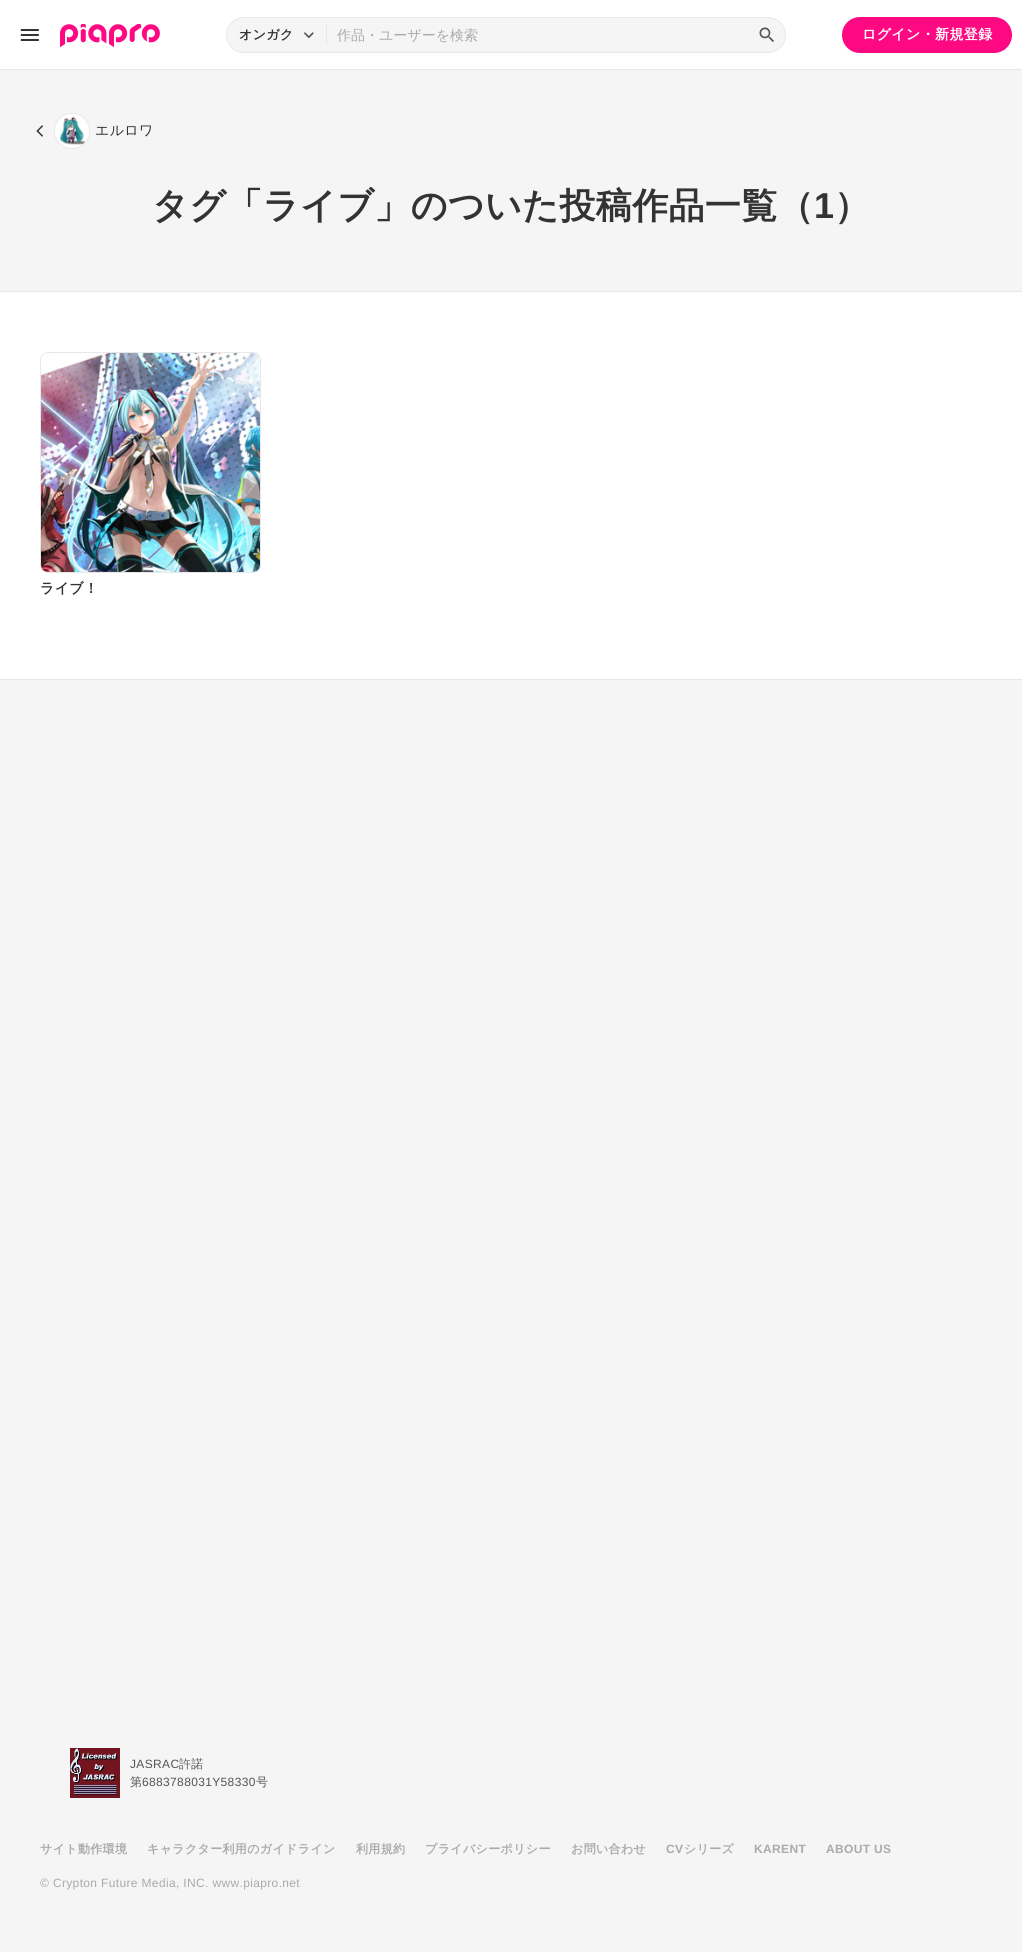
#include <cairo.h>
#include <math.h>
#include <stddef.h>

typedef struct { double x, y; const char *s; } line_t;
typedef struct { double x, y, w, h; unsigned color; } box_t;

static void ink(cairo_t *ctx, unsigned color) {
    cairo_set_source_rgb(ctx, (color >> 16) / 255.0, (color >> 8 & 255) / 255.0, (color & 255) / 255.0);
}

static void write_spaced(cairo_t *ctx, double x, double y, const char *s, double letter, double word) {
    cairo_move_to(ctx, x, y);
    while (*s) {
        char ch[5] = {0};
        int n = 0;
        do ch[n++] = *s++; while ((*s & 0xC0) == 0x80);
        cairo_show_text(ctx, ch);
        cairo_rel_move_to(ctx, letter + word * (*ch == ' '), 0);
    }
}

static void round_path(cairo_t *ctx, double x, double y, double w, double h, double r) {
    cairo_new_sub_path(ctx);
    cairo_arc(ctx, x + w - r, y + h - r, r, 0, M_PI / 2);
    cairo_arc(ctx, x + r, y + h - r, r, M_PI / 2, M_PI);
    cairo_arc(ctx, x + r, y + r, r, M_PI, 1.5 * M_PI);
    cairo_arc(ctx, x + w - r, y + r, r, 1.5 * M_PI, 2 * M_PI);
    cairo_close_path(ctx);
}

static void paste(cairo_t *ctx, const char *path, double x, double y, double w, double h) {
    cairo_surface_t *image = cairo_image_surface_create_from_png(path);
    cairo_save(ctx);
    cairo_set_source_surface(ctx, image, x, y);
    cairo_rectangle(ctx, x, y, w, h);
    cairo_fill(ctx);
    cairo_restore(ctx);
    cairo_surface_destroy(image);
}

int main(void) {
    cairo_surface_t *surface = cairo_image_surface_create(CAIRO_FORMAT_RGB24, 1022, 1952);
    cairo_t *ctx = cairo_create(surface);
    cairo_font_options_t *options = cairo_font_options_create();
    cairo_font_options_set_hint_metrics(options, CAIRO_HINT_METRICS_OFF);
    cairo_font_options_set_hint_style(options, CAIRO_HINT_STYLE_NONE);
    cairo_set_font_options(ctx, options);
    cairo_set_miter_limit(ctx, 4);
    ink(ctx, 0xF5F5F5);
    cairo_paint(ctx);
    ink(ctx, 0xFFFFFF);
    cairo_rectangle(ctx, 0, 0, 1022, 69);
    cairo_fill(ctx);
    ink(ctx, 0xE8E8E8);
    cairo_rectangle(ctx, 0, 69, 1022, 1);
    cairo_fill(ctx);
    paste(ctx, "media/1.png", 20, 29, 19, 12);
    paste(ctx, "media/2.png", 60, 24, 100, 24);
    ink(ctx, 0xF5F5F5);
    round_path(ctx, 226.5, 17.5, 559, 35, 17.5);
    cairo_fill_preserve(ctx);
    ink(ctx, 0xE8E8E8);
    cairo_set_line_width(ctx, 1);
    cairo_stroke(ctx);
    cairo_select_font_face(ctx, "WenQuanYi Zen Hei", CAIRO_FONT_SLANT_NORMAL, CAIRO_FONT_WEIGHT_BOLD);
    cairo_set_font_size(ctx, 13);
    ink(ctx, 0x333333);
    write_spaced(ctx, 239, 39, "オンガク", 0.35, 0);
    paste(ctx, "media/3.png", 303, 32, 11, 7);
    ink(ctx, 0xE8E8E8);
    cairo_rectangle(ctx, 326, 25, 1, 20);
    cairo_fill(ctx);
    cairo_select_font_face(ctx, "WenQuanYi Zen Hei Medium", CAIRO_FONT_SLANT_NORMAL, CAIRO_FONT_WEIGHT_NORMAL);
    cairo_set_font_size(ctx, 14);
    ink(ctx, 0xAAAAAA);
    cairo_move_to(ctx, 337, 40);
    cairo_show_text(ctx, "作品・ユーザーを検索");
    paste(ctx, "media/4.png", 759, 27, 15, 15);
    ink(ctx, 0xFF0982);
    round_path(ctx, 842, 17, 170, 36, 18);
    cairo_fill(ctx);
    cairo_select_font_face(ctx, "WenQuanYi Zen Hei", CAIRO_FONT_SLANT_NORMAL, CAIRO_FONT_WEIGHT_BOLD);
    ink(ctx, 0xFFFFFF);
    write_spaced(ctx, 862, 39, "ログイン・新規登録", 0.35, 0);
    paste(ctx, "media/5.png", 36, 125, 8, 12);
    cairo_arc(ctx, 72, 131, 17.5, 0, 2 * M_PI);
    ink(ctx, 0xE8E8E8);
    cairo_stroke(ctx);
    paste(ctx, "media/6.png", 55, 114, 34, 34);
    cairo_select_font_face(ctx, "WenQuanYi Zen Hei Medium", CAIRO_FONT_SLANT_NORMAL, CAIRO_FONT_WEIGHT_NORMAL);
    ink(ctx, 0x333333);
    write_spaced(ctx, 95, 135, "エルロワ", 0.35, 0);
    cairo_select_font_face(ctx, "WenQuanYi Zen Hei", CAIRO_FONT_SLANT_NORMAL, CAIRO_FONT_WEIGHT_BOLD);
    cairo_set_font_size(ctx, 36);
    write_spaced(ctx, 152, 218, "タグ「ライブ」のついた投稿作品一覧（", 0.35, 0);
    cairo_select_font_face(ctx, "Liberation Sans", CAIRO_FONT_SLANT_NORMAL, CAIRO_FONT_WEIGHT_BOLD);
    write_spaced(ctx, 814, 218, "1", 0.35, 0);
    cairo_select_font_face(ctx, "WenQuanYi Zen Hei", CAIRO_FONT_SLANT_NORMAL, CAIRO_FONT_WEIGHT_BOLD);
    write_spaced(ctx, 834, 218, "）", 0.35, 0);
    {
        static const box_t items[] = {
            {0, 292, 1022, 387, 0xFFFFFF},
            {0, 291, 1022, 1, 0xE8E8E8},
            {0, 679, 1022, 1, 0xE8E8E8},
        };
        for (size_t i = 0; i < sizeof items / sizeof *items; i++) {
            ink(ctx, items[i].color);
            cairo_rectangle(ctx, items[i].x, items[i].y, items[i].w, items[i].h);
            cairo_fill(ctx);
        }
    }
    round_path(ctx, 40.5, 352.5, 220, 220, 7.5);
    cairo_stroke(ctx);
    paste(ctx, "media/7.png", 41, 353, 219, 219);
    cairo_set_font_size(ctx, 14);
    ink(ctx, 0x333333);
    write_spaced(ctx, 40, 593, "ライブ！", 0.35, 0);
    paste(ctx, "media/8.png", 70, 1748, 50, 50);
    cairo_select_font_face(ctx, "Liberation Sans", CAIRO_FONT_SLANT_NORMAL, CAIRO_FONT_WEIGHT_NORMAL);
    cairo_set_font_size(ctx, 12);
    ink(ctx, 0x555555);
    write_spaced(ctx, 130, 1768, "JASRAC", 0.35, 0);
    cairo_select_font_face(ctx, "WenQuanYi Zen Hei Medium", CAIRO_FONT_SLANT_NORMAL, CAIRO_FONT_WEIGHT_NORMAL);
    write_spaced(ctx, 179, 1768, "許諾", 0.35, 0);
    write_spaced(ctx, 130, 1786, "第", 0.35, 0);
    cairo_select_font_face(ctx, "Liberation Sans", CAIRO_FONT_SLANT_NORMAL, CAIRO_FONT_WEIGHT_NORMAL);
    write_spaced(ctx, 142, 1786, "6883788031Y58330", 0.35, 0);
    cairo_select_font_face(ctx, "WenQuanYi Zen Hei Medium", CAIRO_FONT_SLANT_NORMAL, CAIRO_FONT_WEIGHT_NORMAL);
    write_spaced(ctx, 256, 1786, "号", 0.35, 0);
    cairo_select_font_face(ctx, "WenQuanYi Zen Hei", CAIRO_FONT_SLANT_NORMAL, CAIRO_FONT_WEIGHT_BOLD);
    ink(ctx, 0xAAAAAA);
    {
        static const line_t items[] = {
            {40, 1853, "サイト動作環境"},
            {147, 1853, "キャラクター利用のガイドライン"},
            {356, 1853, "利用規約"},
            {425, 1853, "プライバシーポリシー"},
            {571, 1853, "お問い合わせ"},
        };
        for (size_t i = 0; i < sizeof items / sizeof *items; i++) {
            write_spaced(ctx, items[i].x, items[i].y, items[i].s, 0.35, 0);
        }
    }
    cairo_select_font_face(ctx, "Liberation Sans", CAIRO_FONT_SLANT_NORMAL, CAIRO_FONT_WEIGHT_BOLD);
    write_spaced(ctx, 666, 1853, "CV", 0.35, 0);
    cairo_select_font_face(ctx, "WenQuanYi Zen Hei", CAIRO_FONT_SLANT_NORMAL, CAIRO_FONT_WEIGHT_BOLD);
    write_spaced(ctx, 684, 1853, "シリーズ", 0.35, 0);
    cairo_select_font_face(ctx, "Liberation Sans", CAIRO_FONT_SLANT_NORMAL, CAIRO_FONT_WEIGHT_BOLD);
    write_spaced(ctx, 754, 1853, "KARENT", 0.35, 0);
    write_spaced(ctx, 826, 1853, "ABOUT US", 0.35, 0);
    cairo_select_font_face(ctx, "Liberation Sans", CAIRO_FONT_SLANT_NORMAL, CAIRO_FONT_WEIGHT_NORMAL);
    write_spaced(ctx, 40, 1887, "© Crypton Future Media, INC. www.piapro.net", 0.35, 0);
    cairo_surface_write_to_png(surface, "image.png");
    cairo_font_options_destroy(options);
    cairo_destroy(ctx);
    cairo_surface_destroy(surface);
    return 0;
}
